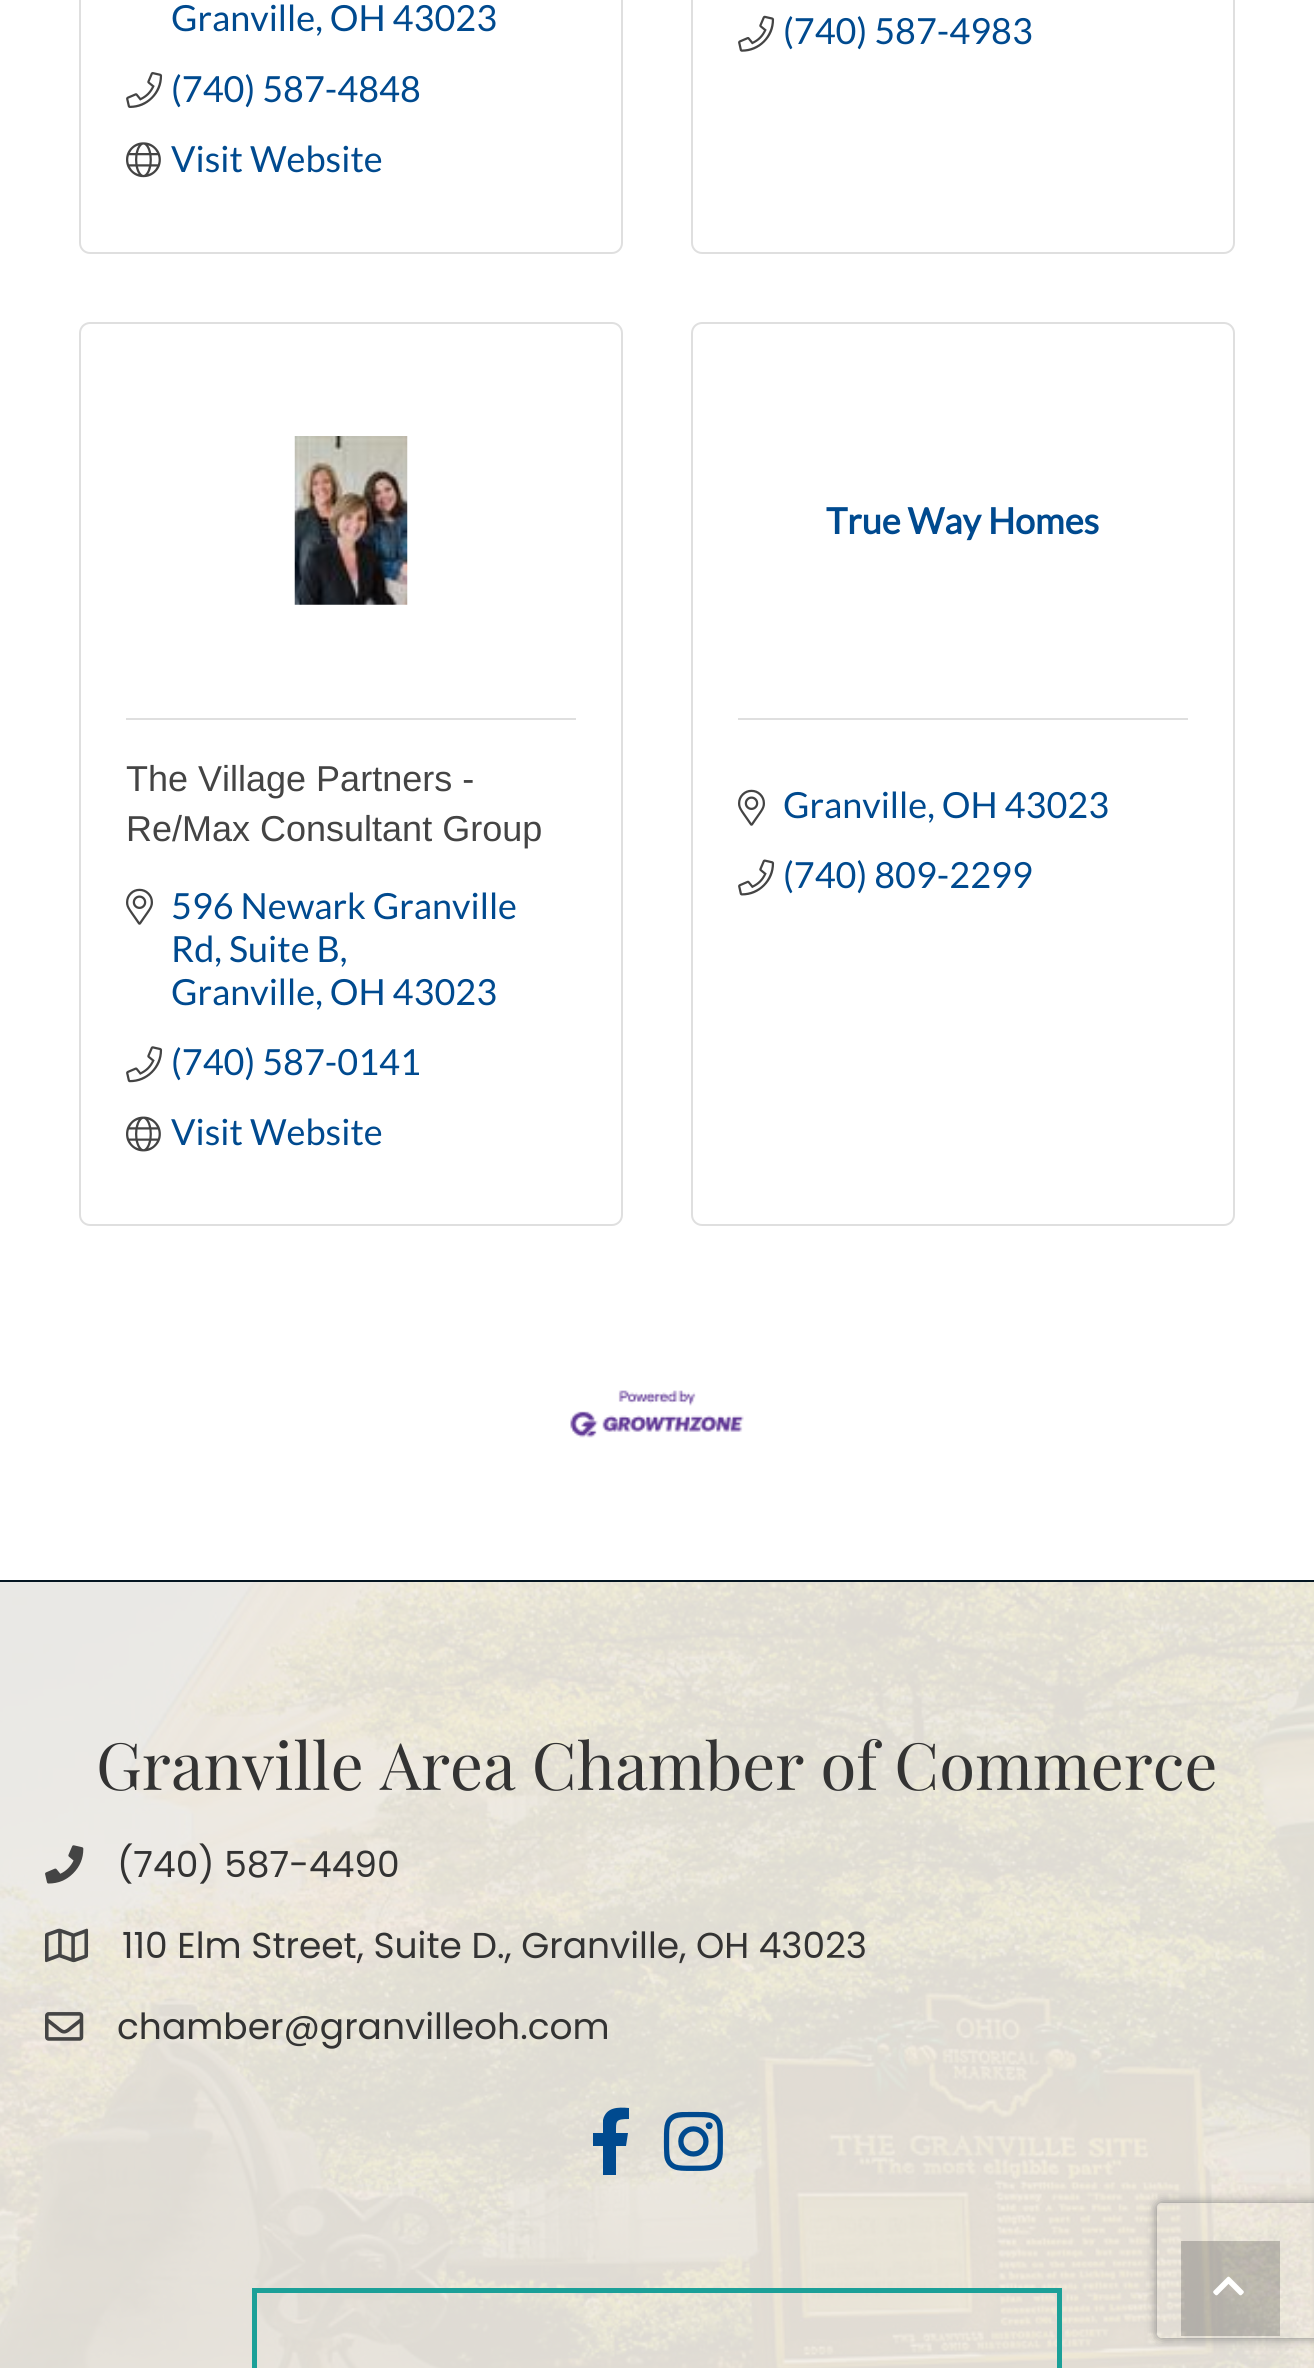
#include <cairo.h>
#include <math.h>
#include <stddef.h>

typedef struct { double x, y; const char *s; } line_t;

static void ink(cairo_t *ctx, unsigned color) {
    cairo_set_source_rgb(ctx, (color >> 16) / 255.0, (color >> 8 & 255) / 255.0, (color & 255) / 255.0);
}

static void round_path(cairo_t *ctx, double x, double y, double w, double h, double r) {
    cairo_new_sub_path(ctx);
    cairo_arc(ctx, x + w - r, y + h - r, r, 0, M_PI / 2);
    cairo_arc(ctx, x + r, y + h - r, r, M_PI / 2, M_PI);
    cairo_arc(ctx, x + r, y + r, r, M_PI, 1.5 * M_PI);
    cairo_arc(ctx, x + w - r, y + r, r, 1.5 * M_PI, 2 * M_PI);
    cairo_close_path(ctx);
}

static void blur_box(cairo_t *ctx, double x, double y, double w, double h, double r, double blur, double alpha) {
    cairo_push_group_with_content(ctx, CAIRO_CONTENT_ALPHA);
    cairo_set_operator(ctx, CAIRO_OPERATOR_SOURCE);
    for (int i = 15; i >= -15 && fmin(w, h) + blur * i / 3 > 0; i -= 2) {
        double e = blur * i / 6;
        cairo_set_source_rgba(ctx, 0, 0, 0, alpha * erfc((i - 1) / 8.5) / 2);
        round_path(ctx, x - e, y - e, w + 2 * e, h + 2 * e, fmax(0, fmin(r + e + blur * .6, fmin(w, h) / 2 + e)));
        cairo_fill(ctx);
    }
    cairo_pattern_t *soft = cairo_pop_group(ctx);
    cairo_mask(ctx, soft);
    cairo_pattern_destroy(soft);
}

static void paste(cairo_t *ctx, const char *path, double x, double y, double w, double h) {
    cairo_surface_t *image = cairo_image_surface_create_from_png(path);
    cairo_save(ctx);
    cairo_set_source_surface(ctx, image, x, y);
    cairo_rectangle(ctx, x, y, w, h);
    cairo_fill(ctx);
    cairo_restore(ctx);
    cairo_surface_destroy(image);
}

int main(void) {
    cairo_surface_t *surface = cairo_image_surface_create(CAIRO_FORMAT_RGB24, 1314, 2368);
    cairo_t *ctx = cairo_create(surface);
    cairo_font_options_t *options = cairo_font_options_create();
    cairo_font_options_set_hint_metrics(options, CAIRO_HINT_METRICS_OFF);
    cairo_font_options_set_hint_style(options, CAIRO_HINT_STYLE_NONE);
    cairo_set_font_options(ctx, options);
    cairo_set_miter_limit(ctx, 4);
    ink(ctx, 0xFFFFFF);
    cairo_paint(ctx);
    round_path(ctx, 80, -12, 542, 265, 10);
    ink(ctx, 0xDFDFDF);
    cairo_stroke(ctx);
    cairo_select_font_face(ctx, "Lato", CAIRO_FONT_SLANT_NORMAL, CAIRO_FONT_WEIGHT_NORMAL);
    cairo_set_font_size(ctx, 36);
    ink(ctx, 0x004A8F);
    cairo_move_to(ctx, 171, 31);
    cairo_show_text(ctx, "Granville, OH 43023");
    paste(ctx, "media/1.png", 126, 72, 37, 36);
    cairo_move_to(ctx, 171, 102);
    cairo_show_text(ctx, "(740) 587-4848");
    paste(ctx, "media/2.png", 126, 142, 35, 36);
    cairo_move_to(ctx, 171, 172);
    cairo_show_text(ctx, "Visit Website");
    round_path(ctx, 692, -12, 542, 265, 10);
    ink(ctx, 0xDFDFDF);
    cairo_stroke(ctx);
    paste(ctx, "media/3.png", 738, 15, 37, 37);
    ink(ctx, 0x004A8F);
    cairo_move_to(ctx, 783, 44);
    cairo_show_text(ctx, "(740) 587-4983");
    round_path(ctx, 692, 323, 542, 902, 10);
    ink(ctx, 0xDFDFDF);
    cairo_stroke(ctx);
    cairo_select_font_face(ctx, "Lato", CAIRO_FONT_SLANT_NORMAL, CAIRO_FONT_WEIGHT_BOLD);
    ink(ctx, 0x004A8F);
    cairo_move_to(ctx, 826, 534);
    cairo_show_text(ctx, "True Way Homes");
    ink(ctx, 0xDFDFDF);
    cairo_rectangle(ctx, 738, 718, 450, 2);
    cairo_fill(ctx);
    paste(ctx, "media/4.png", 738, 789, 27, 37);
    cairo_select_font_face(ctx, "Lato", CAIRO_FONT_SLANT_NORMAL, CAIRO_FONT_WEIGHT_NORMAL);
    ink(ctx, 0x004A8F);
    cairo_move_to(ctx, 783, 818);
    cairo_show_text(ctx, "Granville, OH 43023");
    paste(ctx, "media/5.png", 738, 859, 37, 37);
    cairo_move_to(ctx, 783, 888);
    cairo_show_text(ctx, "(740) 809-2299");
    round_path(ctx, 80, 323, 542, 902, 10);
    ink(ctx, 0xDFDFDF);
    cairo_stroke(ctx);
    paste(ctx, "media/6.png", 294, 436, 114, 169);
    cairo_rectangle(ctx, 126, 718, 450, 2);
    cairo_fill(ctx);
    cairo_select_font_face(ctx, "Liberation Sans", CAIRO_FONT_SLANT_NORMAL, CAIRO_FONT_WEIGHT_NORMAL);
    ink(ctx, 0x444444);
    cairo_move_to(ctx, 126, 791);
    cairo_show_text(ctx, "The Village Partners -");
    cairo_move_to(ctx, 126, 841);
    cairo_show_text(ctx, "Re/Max Consultant Group");
    paste(ctx, "media/4.png", 126, 888, 27, 37);
    cairo_select_font_face(ctx, "Lato", CAIRO_FONT_SLANT_NORMAL, CAIRO_FONT_WEIGHT_NORMAL);
    ink(ctx, 0x004A8F);
    {
        static const line_t items[] = {
            {171, 919, "596 Newark Granville"},
            {171, 962, "Rd, Suite B,"},
            {171, 1005, "Granville, OH 43023"},
        };
        for (size_t i = 0; i < sizeof items / sizeof *items; i++) {
            cairo_move_to(ctx, items[i].x, items[i].y);
            cairo_show_text(ctx, items[i].s);
        }
    }
    paste(ctx, "media/7.png", 126, 1046, 37, 37);
    cairo_move_to(ctx, 171, 1075);
    cairo_show_text(ctx, "(740) 587-0141");
    paste(ctx, "media/8.png", 126, 1116, 35, 36);
    cairo_move_to(ctx, 171, 1145);
    cairo_show_text(ctx, "Visit Website");
    paste(ctx, "media/9.png", 570, 1390, 174, 48);
    paste(ctx, "media/10.png", 0, 1582, 1314, 786);
    ink(ctx, 0x051622);
    cairo_rectangle(ctx, 0, 1580, 1314, 2);
    cairo_fill(ctx);
    cairo_select_font_face(ctx, "Playfair Display", CAIRO_FONT_SLANT_NORMAL, CAIRO_FONT_WEIGHT_NORMAL);
    cairo_set_font_size(ctx, 65.25);
    ink(ctx, 0x333333);
    cairo_move_to(ctx, 96, 1790);
    cairo_show_text(ctx, "Granville Area Chamber of Commerce");
    paste(ctx, "media/11.png", 45, 1845, 39, 39);
    cairo_select_font_face(ctx, "Poppins", CAIRO_FONT_SLANT_NORMAL, CAIRO_FONT_WEIGHT_NORMAL);
    cairo_set_font_size(ctx, 36);
    cairo_move_to(ctx, 117, 1877);
    cairo_show_text(ctx, "(740) 587-4490");
    paste(ctx, "media/12.png", 45, 1928, 44, 35);
    cairo_move_to(ctx, 122, 1958);
    cairo_show_text(ctx, "110 Elm Street, Suite D., Granville, OH 43023");
    paste(ctx, "media/13.png", 45, 2012, 39, 29);
    cairo_move_to(ctx, 117, 2039);
    cairo_show_text(ctx, "chamber@granvilleoh.com");
    ink(ctx, 0x004A8F);
    cairo_new_path(ctx);
    cairo_move_to(ctx, 626, 2146);
    cairo_line_to(ctx, 616, 2146);
    cairo_line_to(ctx, 616, 2175);
    cairo_line_to(ctx, 603, 2175);
    cairo_line_to(ctx, 603, 2146);
    cairo_line_to(ctx, 593, 2146);
    cairo_line_to(ctx, 593, 2133);
    cairo_line_to(ctx, 603, 2133);
    cairo_line_to(ctx, 603, 2120);
    cairo_curve_to(ctx, 606, 2107, 618, 2107, 629, 2108);
    cairo_line_to(ctx, 629, 2119);
    cairo_curve_to(ctx, 615, 2119, 616, 2121, 616, 2133);
    cairo_line_to(ctx, 628, 2133);
    cairo_close_path(ctx);
    cairo_fill(ctx);
    paste(ctx, "media/14.png", 663, 2111, 60, 60);
    cairo_rectangle(ctx, 254.5, 2290.5, 805, 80);
    ink(ctx, 0x1BA098);
    cairo_set_line_width(ctx, 5);
    cairo_stroke(ctx);
    cairo_save(ctx);
    cairo_set_fill_rule(ctx, CAIRO_FILL_RULE_EVEN_ODD);
    cairo_new_path(ctx);
    cairo_move_to(ctx, 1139, 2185);
    cairo_line_to(ctx, 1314, 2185);
    cairo_line_to(ctx, 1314, 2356);
    cairo_line_to(ctx, 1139, 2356);
    cairo_close_path(ctx);
    cairo_move_to(ctx, 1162, 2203);
    cairo_line_to(ctx, 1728, 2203);
    cairo_curve_to(ctx, 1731, 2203, 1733, 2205, 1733, 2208);
    cairo_line_to(ctx, 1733, 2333);
    cairo_curve_to(ctx, 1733, 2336, 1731, 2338, 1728, 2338);
    cairo_line_to(ctx, 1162, 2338);
    cairo_curve_to(ctx, 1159, 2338, 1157, 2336, 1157, 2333);
    cairo_line_to(ctx, 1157, 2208);
    cairo_curve_to(ctx, 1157, 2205, 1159, 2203, 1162, 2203);
    cairo_close_path(ctx);
    cairo_clip(ctx);
    ink(ctx, 0x808080);
    blur_box(ctx, 1157, 2203, 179, 135, 5, 5.5, 1);
    cairo_restore(ctx);
    cairo_set_source_rgba(ctx, 0, 0, 0, 0.2);
    cairo_rectangle(ctx, 1181, 2241, 99, 95);
    cairo_fill(ctx);
    paste(ctx, "media/15.png", 1213, 2276, 31, 20);
    cairo_surface_write_to_png(surface, "image.png");
    cairo_font_options_destroy(options);
    cairo_destroy(ctx);
    cairo_surface_destroy(surface);
    return 0;
}
